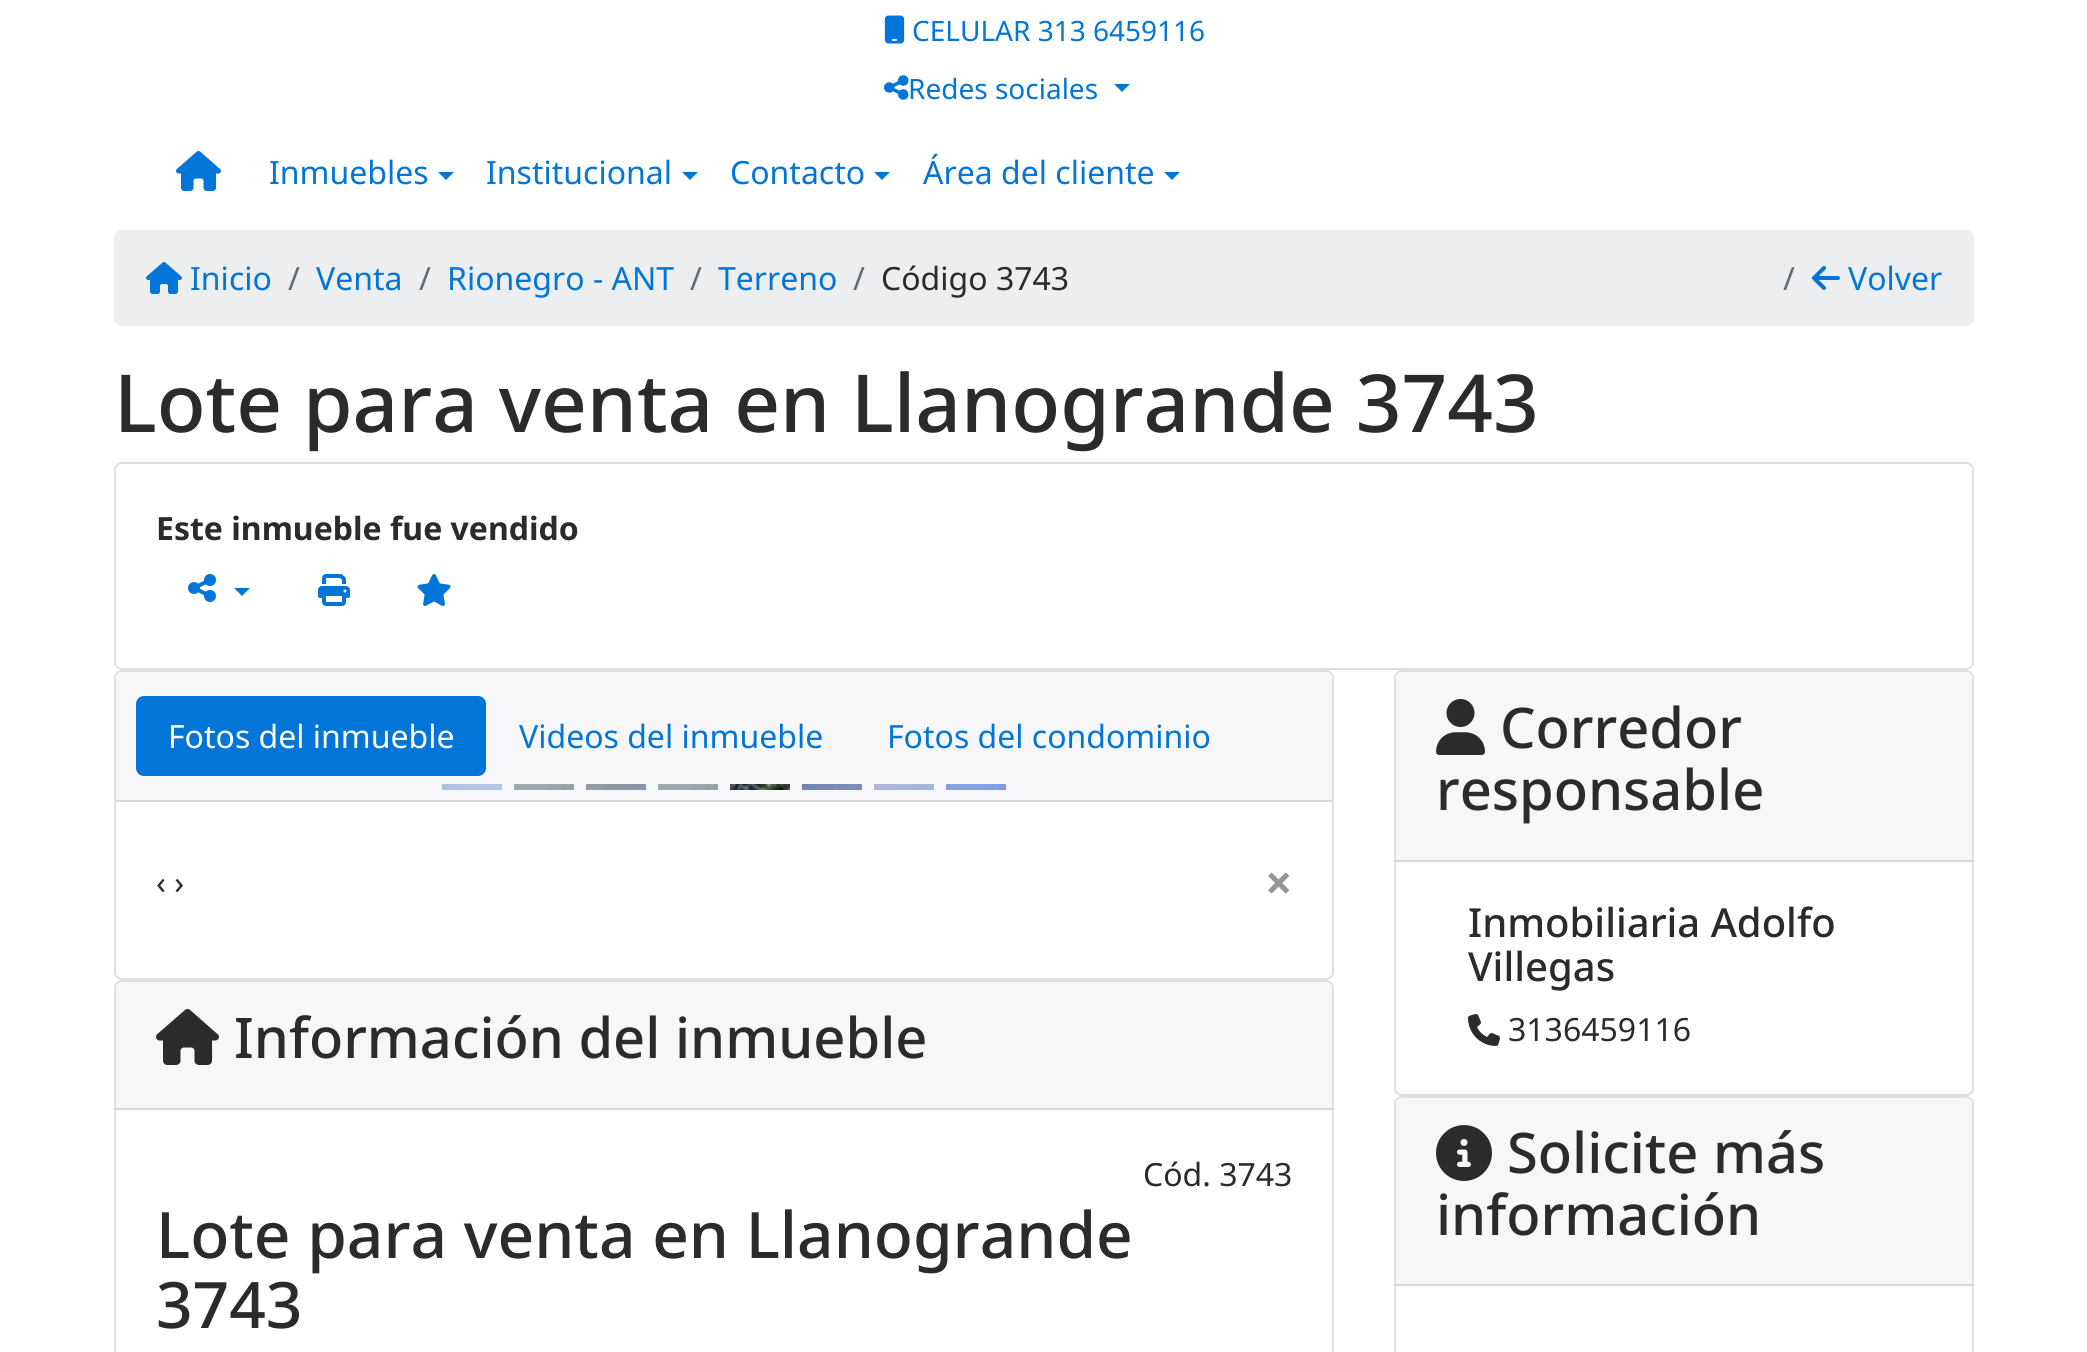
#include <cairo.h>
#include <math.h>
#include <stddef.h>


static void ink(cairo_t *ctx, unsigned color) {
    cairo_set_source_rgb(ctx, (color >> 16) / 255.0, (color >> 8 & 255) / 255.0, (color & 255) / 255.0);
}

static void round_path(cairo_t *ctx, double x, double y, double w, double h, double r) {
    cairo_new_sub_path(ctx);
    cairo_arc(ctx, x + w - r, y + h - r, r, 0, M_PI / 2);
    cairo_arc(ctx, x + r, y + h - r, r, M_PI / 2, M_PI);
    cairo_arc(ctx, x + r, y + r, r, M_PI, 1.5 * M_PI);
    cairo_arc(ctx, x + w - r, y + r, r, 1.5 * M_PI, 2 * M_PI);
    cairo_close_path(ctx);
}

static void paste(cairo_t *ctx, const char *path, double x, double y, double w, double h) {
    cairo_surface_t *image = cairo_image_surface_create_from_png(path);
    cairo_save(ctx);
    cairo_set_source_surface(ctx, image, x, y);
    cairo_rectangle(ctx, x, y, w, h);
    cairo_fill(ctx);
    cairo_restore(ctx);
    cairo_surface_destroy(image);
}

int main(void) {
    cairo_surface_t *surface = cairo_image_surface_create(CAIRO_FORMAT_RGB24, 2087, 1352);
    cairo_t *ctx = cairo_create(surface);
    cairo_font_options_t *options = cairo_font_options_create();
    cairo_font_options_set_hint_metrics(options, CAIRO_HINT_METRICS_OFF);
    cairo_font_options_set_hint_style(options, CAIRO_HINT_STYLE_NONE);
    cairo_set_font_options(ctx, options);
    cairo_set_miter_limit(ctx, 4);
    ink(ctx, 0xFFFFFF);
    cairo_paint(ctx);
    paste(ctx, "media/1.png", 884, 15, 21, 29);
    cairo_select_font_face(ctx, "Noto Sans", CAIRO_FONT_SLANT_NORMAL, CAIRO_FONT_WEIGHT_NORMAL);
    cairo_set_font_size(ctx, 28);
    ink(ctx, 0x0275D8);
    cairo_move_to(ctx, 912, 41);
    cairo_show_text(ctx, "CELULAR 313 6459116");
    paste(ctx, "media/2.png", 884, 75, 25, 25);
    cairo_move_to(ctx, 908, 99);
    cairo_show_text(ctx, "Redes sociales");
    cairo_new_path(ctx);
    cairo_move_to(ctx, 1114, 84);
    cairo_line_to(ctx, 1130, 84);
    cairo_line_to(ctx, 1122, 92);
    cairo_close_path(ctx);
    cairo_fill(ctx);
    paste(ctx, "media/3.png", 176, 151, 45, 40);
    cairo_set_font_size(ctx, 32);
    cairo_move_to(ctx, 269, 184);
    cairo_show_text(ctx, "Inmuebles");
    cairo_new_path(ctx);
    cairo_move_to(ctx, 438, 172);
    cairo_line_to(ctx, 454, 172);
    cairo_line_to(ctx, 446, 180);
    cairo_close_path(ctx);
    cairo_fill(ctx);
    cairo_move_to(ctx, 486, 184);
    cairo_show_text(ctx, "Institucional");
    cairo_new_path(ctx);
    cairo_move_to(ctx, 682, 172);
    cairo_line_to(ctx, 698, 172);
    cairo_line_to(ctx, 690, 180);
    cairo_close_path(ctx);
    cairo_fill(ctx);
    cairo_move_to(ctx, 730, 184);
    cairo_show_text(ctx, "Contacto");
    cairo_new_path(ctx);
    cairo_move_to(ctx, 874, 172);
    cairo_line_to(ctx, 890, 172);
    cairo_line_to(ctx, 882, 180);
    cairo_close_path(ctx);
    cairo_fill(ctx);
    cairo_move_to(ctx, 923, 184);
    cairo_show_text(ctx, "Área del cliente");
    cairo_new_path(ctx);
    cairo_move_to(ctx, 1164, 172);
    cairo_line_to(ctx, 1180, 172);
    cairo_line_to(ctx, 1172, 180);
    cairo_close_path(ctx);
    cairo_fill(ctx);
    ink(ctx, 0xECEEEF);
    round_path(ctx, 114, 230, 1860, 96, 8);
    cairo_fill(ctx);
    paste(ctx, "media/4.png", 146, 262, 36, 32);
    ink(ctx, 0x0275D8);
    cairo_move_to(ctx, 190, 290);
    cairo_show_text(ctx, "Inicio");
    ink(ctx, 0x636C72);
    cairo_move_to(ctx, 288, 290);
    cairo_show_text(ctx, "/");
    ink(ctx, 0x0275D8);
    cairo_move_to(ctx, 316, 290);
    cairo_show_text(ctx, "Venta");
    ink(ctx, 0x636C72);
    cairo_move_to(ctx, 419, 290);
    cairo_show_text(ctx, "/");
    ink(ctx, 0x0275D8);
    cairo_move_to(ctx, 447, 290);
    cairo_show_text(ctx, "Rionegro - ANT");
    ink(ctx, 0x636C72);
    cairo_move_to(ctx, 690, 290);
    cairo_show_text(ctx, "/");
    ink(ctx, 0x0275D8);
    cairo_move_to(ctx, 718, 290);
    cairo_show_text(ctx, "Terreno");
    ink(ctx, 0x636C72);
    cairo_move_to(ctx, 853, 290);
    cairo_show_text(ctx, "/");
    ink(ctx, 0x292B2C);
    cairo_move_to(ctx, 881, 290);
    cairo_show_text(ctx, "Código 3743");
    ink(ctx, 0x636C72);
    cairo_move_to(ctx, 1783, 290);
    cairo_show_text(ctx, "/");
    paste(ctx, "media/5.png", 1812, 266, 28, 24);
    ink(ctx, 0x0275D8);
    cairo_move_to(ctx, 1848, 290);
    cairo_show_text(ctx, "Volver");
    cairo_select_font_face(ctx, "Noto Sans Medium", CAIRO_FONT_SLANT_NORMAL, CAIRO_FONT_WEIGHT_NORMAL);
    cairo_set_font_size(ctx, 80);
    ink(ctx, 0x292B2C);
    cairo_move_to(ctx, 114, 432);
    cairo_show_text(ctx, "Lote para venta en Llanogrande 3743");
    round_path(ctx, 115, 463, 1858, 206, 7);
    ink(ctx, 0xDFDFDF);
    cairo_stroke(ctx);
    cairo_select_font_face(ctx, "Noto Sans", CAIRO_FONT_SLANT_NORMAL, CAIRO_FONT_WEIGHT_BOLD);
    cairo_set_font_size(ctx, 32);
    ink(ctx, 0x292B2C);
    cairo_move_to(ctx, 156, 540);
    cairo_show_text(ctx, "Este inmueble fue vendido");
    paste(ctx, "media/6.png", 188, 574, 28, 28);
    ink(ctx, 0x0275D8);
    cairo_new_path(ctx);
    cairo_move_to(ctx, 234, 588);
    cairo_line_to(ctx, 250, 588);
    cairo_line_to(ctx, 242, 596);
    cairo_close_path(ctx);
    cairo_fill(ctx);
    paste(ctx, "media/7.png", 318, 574, 32, 32);
    paste(ctx, "media/8.png", 417, 574, 34, 32);
    round_path(ctx, 115, 671, 1218, 308, 7);
    ink(ctx, 0xDFDFDF);
    cairo_stroke(ctx);
    ink(ctx, 0xF7F7F9);
    cairo_new_path(ctx);
    cairo_move_to(ctx, 122, 672);
    cairo_line_to(ctx, 1326, 672);
    cairo_curve_to(ctx, 1329.5, 672, 1332, 674.5, 1332, 678);
    cairo_line_to(ctx, 1332, 802);
    cairo_line_to(ctx, 116, 802);
    cairo_line_to(ctx, 116, 678);
    cairo_curve_to(ctx, 116, 674.5, 118.5, 672, 122, 672);
    cairo_close_path(ctx);
    cairo_fill(ctx);
    ink(ctx, 0xD8D8DA);
    cairo_rectangle(ctx, 116, 800, 1216, 2);
    cairo_fill(ctx);
    ink(ctx, 0x0275D8);
    round_path(ctx, 136, 696, 350, 80, 8);
    cairo_fill(ctx);
    cairo_select_font_face(ctx, "Noto Sans", CAIRO_FONT_SLANT_NORMAL, CAIRO_FONT_WEIGHT_NORMAL);
    ink(ctx, 0xFFFFFF);
    cairo_move_to(ctx, 168, 748);
    cairo_show_text(ctx, "Fotos del inmueble");
    ink(ctx, 0x0275D8);
    cairo_move_to(ctx, 519, 748);
    cairo_show_text(ctx, "Videos del inmueble");
    cairo_move_to(ctx, 887, 748);
    cairo_show_text(ctx, "Fotos del condominio");
    paste(ctx, "media/9.png", 442, 784, 60, 6);
    paste(ctx, "media/10.png", 514, 784, 60, 6);
    paste(ctx, "media/11.png", 586, 784, 60, 6);
    paste(ctx, "media/10.png", 658, 784, 60, 6);
    paste(ctx, "media/12.png", 730, 784, 60, 6);
    paste(ctx, "media/13.png", 802, 784, 60, 6);
    paste(ctx, "media/14.png", 874, 784, 60, 6);
    paste(ctx, "media/15.png", 946, 784, 60, 6);
    ink(ctx, 0x292B2C);
    cairo_move_to(ctx, 156, 894);
    cairo_show_text(ctx, "‹ ›");
    cairo_select_font_face(ctx, "Noto Sans", CAIRO_FONT_SLANT_NORMAL, CAIRO_FONT_WEIGHT_BOLD);
    cairo_set_font_size(ctx, 48);
    ink(ctx, 0x949596);
    cairo_move_to(ctx, 1265, 900);
    cairo_show_text(ctx, "×");
    round_path(ctx, 115, 981, 1218, 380, 7);
    ink(ctx, 0xDFDFDF);
    cairo_stroke(ctx);
    ink(ctx, 0xF7F7F9);
    cairo_new_path(ctx);
    cairo_move_to(ctx, 122, 982);
    cairo_line_to(ctx, 1326, 982);
    cairo_curve_to(ctx, 1329.5, 982, 1332, 984.5, 1332, 988);
    cairo_line_to(ctx, 1332, 1110);
    cairo_line_to(ctx, 116, 1110);
    cairo_line_to(ctx, 116, 988);
    cairo_curve_to(ctx, 116, 984.5, 118.5, 982, 122, 982);
    cairo_close_path(ctx);
    cairo_fill(ctx);
    ink(ctx, 0xD8D8DA);
    cairo_rectangle(ctx, 116, 1108, 1216, 2);
    cairo_fill(ctx);
    paste(ctx, "media/16.png", 156, 1009, 63, 56);
    cairo_select_font_face(ctx, "Noto Sans Medium", CAIRO_FONT_SLANT_NORMAL, CAIRO_FONT_WEIGHT_NORMAL);
    cairo_set_font_size(ctx, 56);
    ink(ctx, 0x292B2C);
    cairo_move_to(ctx, 234, 1058);
    cairo_show_text(ctx, "Información del inmueble");
    cairo_select_font_face(ctx, "Noto Sans", CAIRO_FONT_SLANT_NORMAL, CAIRO_FONT_WEIGHT_NORMAL);
    cairo_set_font_size(ctx, 32);
    cairo_move_to(ctx, 1143, 1186);
    cairo_show_text(ctx, "Cód. 3743");
    cairo_select_font_face(ctx, "Noto Sans Medium", CAIRO_FONT_SLANT_NORMAL, CAIRO_FONT_WEIGHT_NORMAL);
    cairo_set_font_size(ctx, 64);
    cairo_move_to(ctx, 156, 1258);
    cairo_show_text(ctx, "Lote para venta en Llanogrande");
    cairo_move_to(ctx, 156, 1328);
    cairo_show_text(ctx, "3743");
    round_path(ctx, 1395, 671, 578, 424, 7);
    ink(ctx, 0xDFDFDF);
    cairo_stroke(ctx);
    ink(ctx, 0xF7F7F9);
    cairo_new_path(ctx);
    cairo_move_to(ctx, 1402, 672);
    cairo_line_to(ctx, 1966, 672);
    cairo_curve_to(ctx, 1969.5, 672, 1972, 674.5, 1972, 678);
    cairo_line_to(ctx, 1972, 862);
    cairo_line_to(ctx, 1396, 862);
    cairo_line_to(ctx, 1396, 678);
    cairo_curve_to(ctx, 1396, 674.5, 1398.5, 672, 1402, 672);
    cairo_close_path(ctx);
    cairo_fill(ctx);
    ink(ctx, 0xD8D8DA);
    cairo_rectangle(ctx, 1396, 860, 576, 2);
    cairo_fill(ctx);
    paste(ctx, "media/17.png", 1436, 699, 49, 56);
    cairo_set_font_size(ctx, 56);
    ink(ctx, 0x292B2C);
    cairo_move_to(ctx, 1500, 748);
    cairo_show_text(ctx, "Corredor");
    cairo_move_to(ctx, 1436, 810);
    cairo_show_text(ctx, "responsable");
    cairo_set_font_size(ctx, 40);
    cairo_move_to(ctx, 1468, 937);
    cairo_show_text(ctx, "Inmobiliaria Adolfo");
    cairo_move_to(ctx, 1468, 981);
    cairo_show_text(ctx, "Villegas");
    paste(ctx, "media/18.png", 1468, 1014, 32, 32);
    cairo_select_font_face(ctx, "Noto Sans", CAIRO_FONT_SLANT_NORMAL, CAIRO_FONT_WEIGHT_NORMAL);
    cairo_set_font_size(ctx, 32);
    cairo_move_to(ctx, 1508, 1041);
    cairo_show_text(ctx, "3136459116");
    round_path(ctx, 1395, 1097, 578, 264, 7);
    ink(ctx, 0xDFDFDF);
    cairo_stroke(ctx);
    ink(ctx, 0xF7F7F9);
    cairo_new_path(ctx);
    cairo_move_to(ctx, 1402, 1098);
    cairo_line_to(ctx, 1966, 1098);
    cairo_curve_to(ctx, 1969.5, 1098, 1972, 1100.5, 1972, 1104);
    cairo_line_to(ctx, 1972, 1286);
    cairo_line_to(ctx, 1396, 1286);
    cairo_line_to(ctx, 1396, 1104);
    cairo_curve_to(ctx, 1396, 1100.5, 1398.5, 1098, 1402, 1098);
    cairo_close_path(ctx);
    cairo_fill(ctx);
    ink(ctx, 0xD8D8DA);
    cairo_rectangle(ctx, 1396, 1284, 576, 2);
    cairo_fill(ctx);
    paste(ctx, "media/19.png", 1436, 1125, 56, 56);
    cairo_select_font_face(ctx, "Noto Sans Medium", CAIRO_FONT_SLANT_NORMAL, CAIRO_FONT_WEIGHT_NORMAL);
    cairo_set_font_size(ctx, 56);
    ink(ctx, 0x292B2C);
    cairo_move_to(ctx, 1507, 1173);
    cairo_show_text(ctx, "Solicite más");
    cairo_move_to(ctx, 1436, 1235);
    cairo_show_text(ctx, "información");
    cairo_surface_write_to_png(surface, "image.png");
    cairo_font_options_destroy(options);
    cairo_destroy(ctx);
    cairo_surface_destroy(surface);
    return 0;
}
